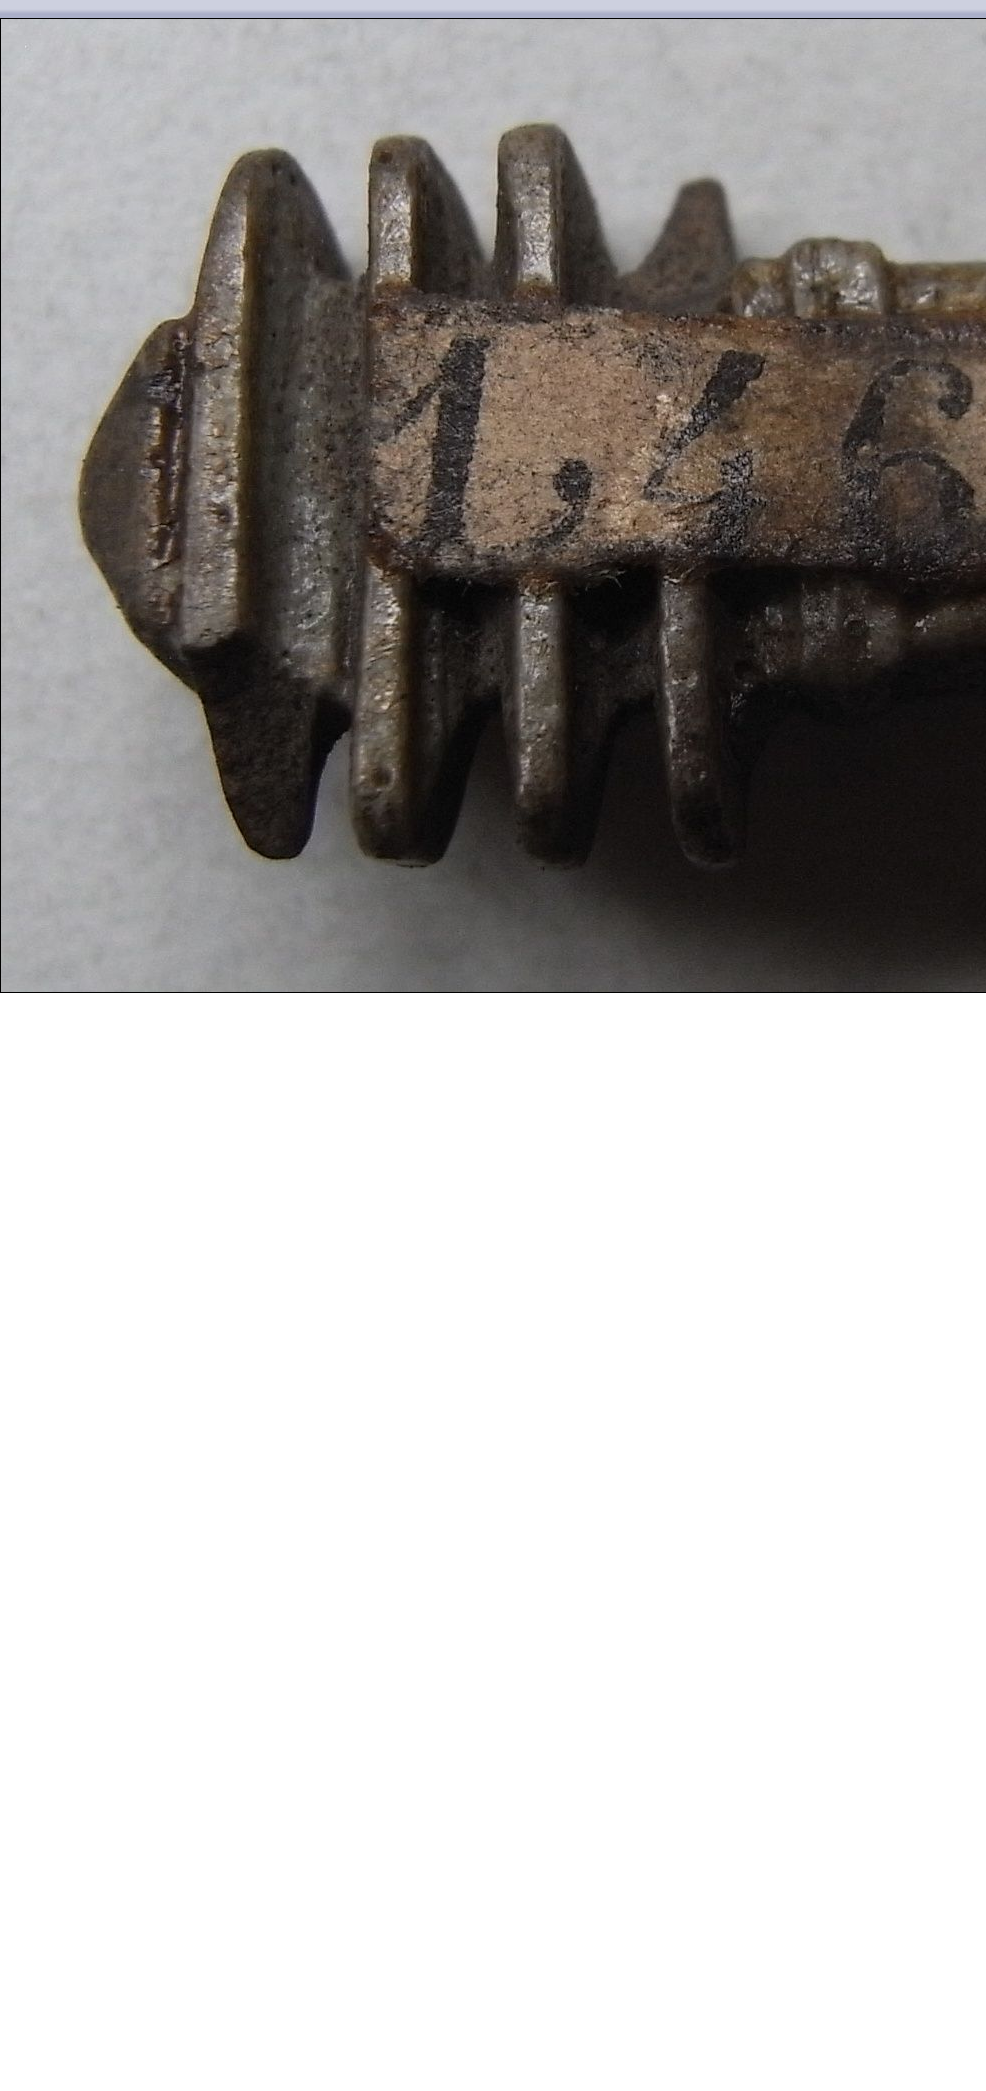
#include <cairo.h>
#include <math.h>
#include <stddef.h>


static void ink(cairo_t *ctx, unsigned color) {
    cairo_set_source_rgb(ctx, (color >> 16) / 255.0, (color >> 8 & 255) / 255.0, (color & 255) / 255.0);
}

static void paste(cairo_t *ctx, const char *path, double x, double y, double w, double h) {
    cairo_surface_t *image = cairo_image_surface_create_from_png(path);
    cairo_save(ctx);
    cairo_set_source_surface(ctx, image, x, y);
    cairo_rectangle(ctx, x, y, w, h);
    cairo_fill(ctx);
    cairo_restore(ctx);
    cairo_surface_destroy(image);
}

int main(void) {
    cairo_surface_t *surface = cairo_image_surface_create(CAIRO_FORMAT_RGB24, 986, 2091);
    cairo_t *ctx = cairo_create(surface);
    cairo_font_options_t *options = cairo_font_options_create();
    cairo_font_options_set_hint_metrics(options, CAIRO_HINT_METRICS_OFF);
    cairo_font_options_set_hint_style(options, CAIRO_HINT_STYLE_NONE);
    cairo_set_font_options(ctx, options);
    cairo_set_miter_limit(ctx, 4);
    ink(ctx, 0xFFFFFF);
    cairo_paint(ctx);
    paste(ctx, "media/1.png", 0, 0, 424, 18);
    paste(ctx, "media/2.png", 424, 0, 562, 18);
    cairo_rectangle(ctx, 0.5, 18.5, 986, 974);
    ink(ctx, 0x000000);
    cairo_set_line_width(ctx, 1);
    cairo_stroke(ctx);
    paste(ctx, "media/3.png", 1, 19, 985, 973);
    cairo_surface_write_to_png(surface, "image.png");
    cairo_font_options_destroy(options);
    cairo_destroy(ctx);
    cairo_surface_destroy(surface);
    return 0;
}
